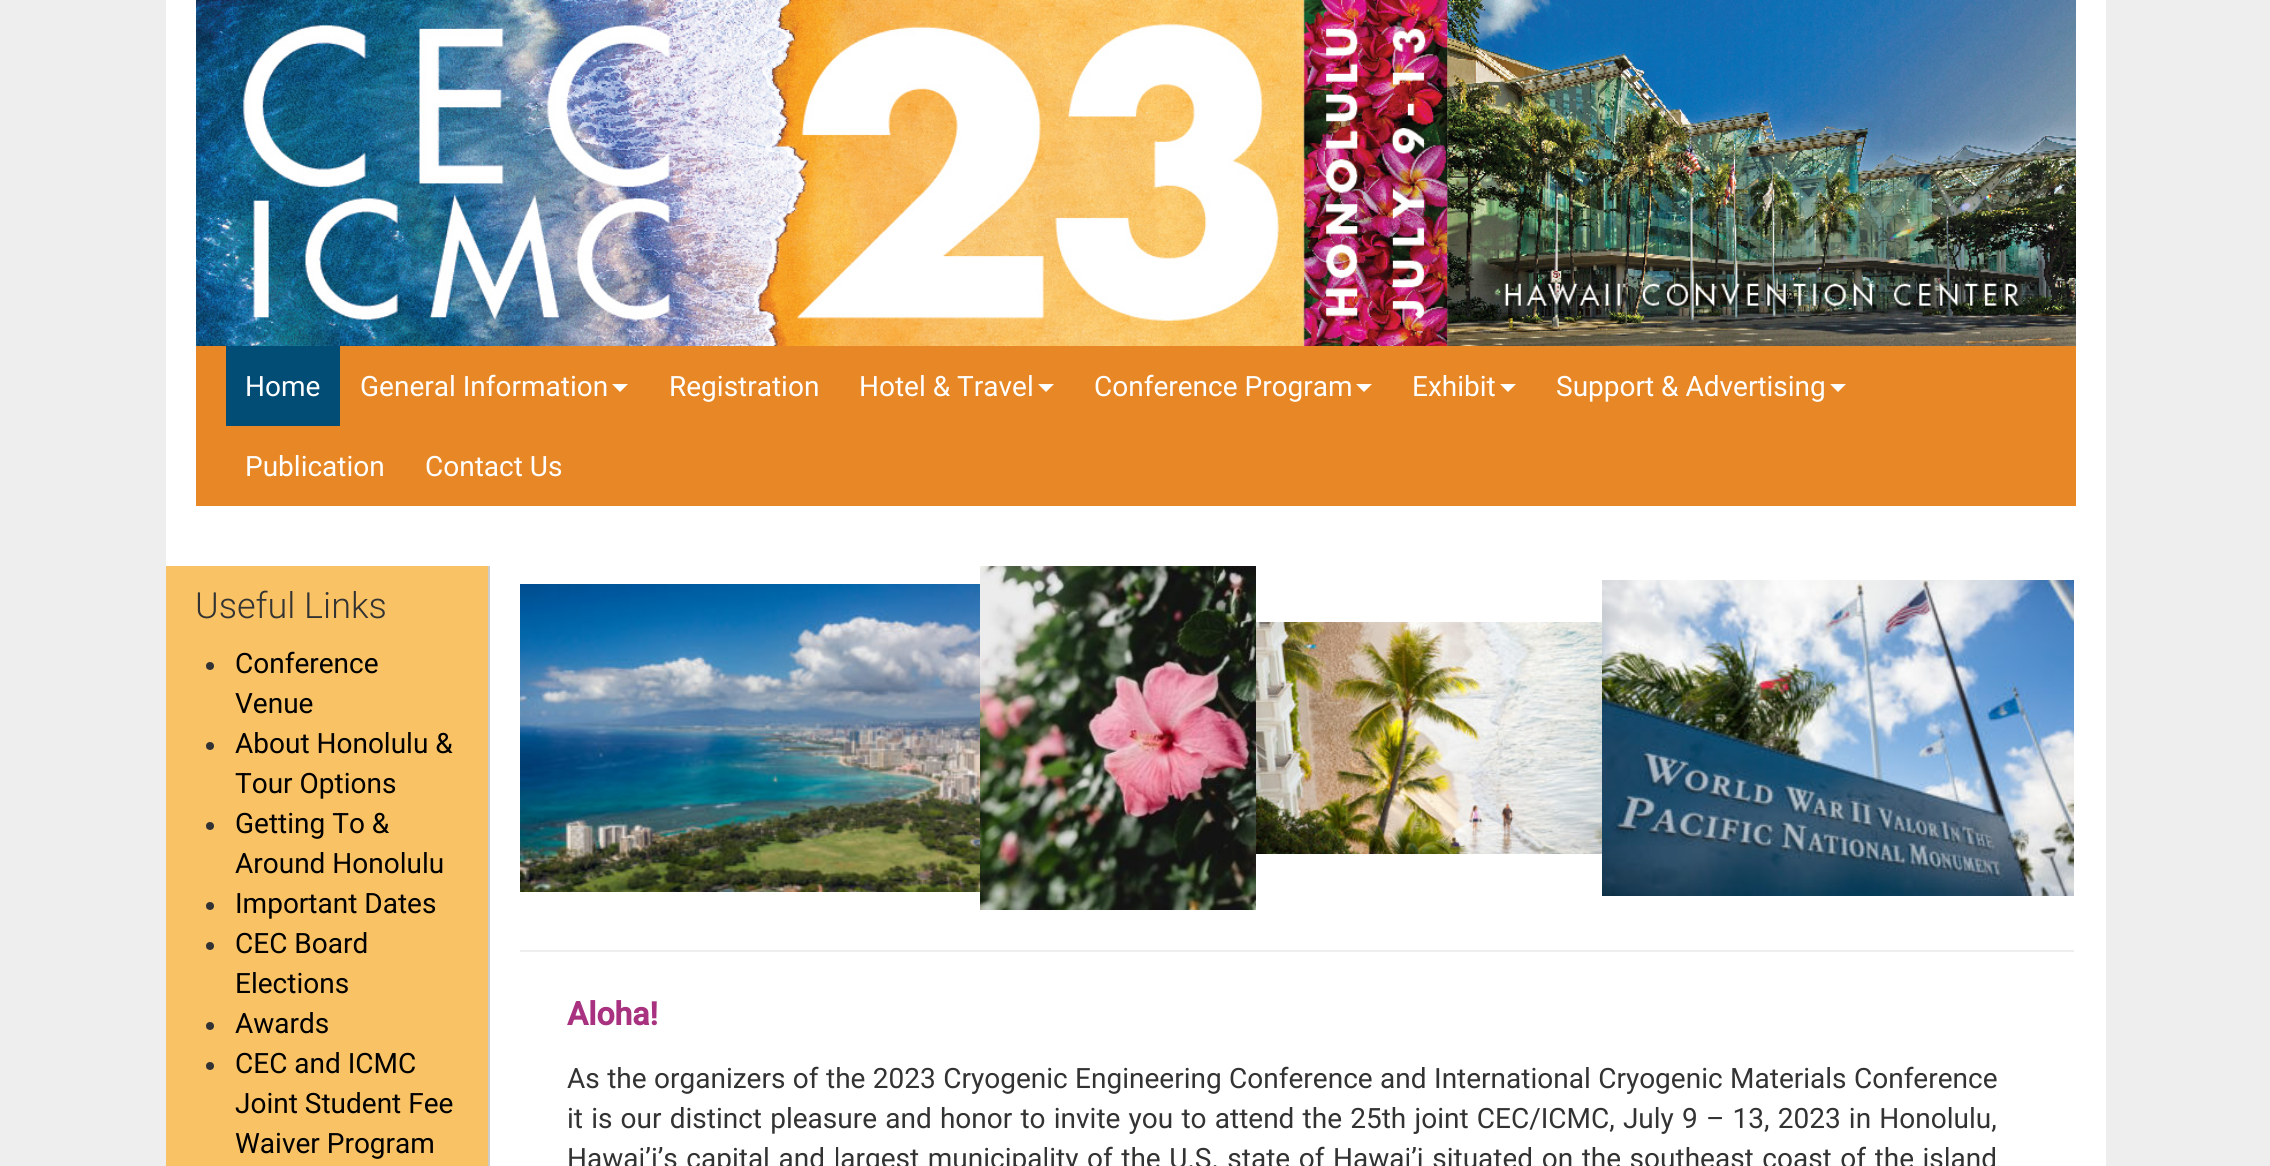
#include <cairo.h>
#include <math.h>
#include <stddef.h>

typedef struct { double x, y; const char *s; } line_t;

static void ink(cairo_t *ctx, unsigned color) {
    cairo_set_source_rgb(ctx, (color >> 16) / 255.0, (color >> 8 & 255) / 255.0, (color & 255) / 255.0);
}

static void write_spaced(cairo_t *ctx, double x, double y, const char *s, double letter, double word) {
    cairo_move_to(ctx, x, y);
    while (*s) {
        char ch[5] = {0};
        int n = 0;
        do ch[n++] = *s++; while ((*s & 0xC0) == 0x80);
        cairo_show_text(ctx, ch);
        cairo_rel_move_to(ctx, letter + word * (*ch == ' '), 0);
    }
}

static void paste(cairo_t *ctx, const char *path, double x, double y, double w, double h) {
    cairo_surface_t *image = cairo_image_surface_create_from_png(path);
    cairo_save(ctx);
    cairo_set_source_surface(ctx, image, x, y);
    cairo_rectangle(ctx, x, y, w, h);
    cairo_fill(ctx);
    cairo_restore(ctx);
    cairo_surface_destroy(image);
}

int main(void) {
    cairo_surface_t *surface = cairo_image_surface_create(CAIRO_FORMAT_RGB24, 2270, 1166);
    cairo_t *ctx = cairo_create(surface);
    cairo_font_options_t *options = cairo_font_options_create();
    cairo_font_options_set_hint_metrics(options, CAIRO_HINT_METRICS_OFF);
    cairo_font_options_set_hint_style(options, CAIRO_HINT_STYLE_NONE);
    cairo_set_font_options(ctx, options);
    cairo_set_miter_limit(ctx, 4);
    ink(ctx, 0xEEEEEE);
    cairo_paint(ctx);
    ink(ctx, 0xFFFFFF);
    cairo_rectangle(ctx, 166, 0, 1940, 1166);
    cairo_fill(ctx);
    ink(ctx, 0xE78725);
    cairo_rectangle(ctx, 196, 346, 1880, 160);
    cairo_fill(ctx);
    paste(ctx, "media/1.png", 196, 0, 1880, 346);
    ink(ctx, 0x014D76);
    cairo_rectangle(ctx, 226, 346, 114, 80);
    cairo_fill(ctx);
    cairo_select_font_face(ctx, "Roboto", CAIRO_FONT_SLANT_NORMAL, CAIRO_FONT_WEIGHT_NORMAL);
    cairo_set_font_size(ctx, 28);
    ink(ctx, 0xFFFFFF);
    cairo_move_to(ctx, 245, 396);
    cairo_show_text(ctx, "Home");
    cairo_move_to(ctx, 360, 396);
    cairo_show_text(ctx, "General Information");
    cairo_new_path(ctx);
    cairo_move_to(ctx, 612, 384);
    cairo_line_to(ctx, 628, 384);
    cairo_line_to(ctx, 620, 392);
    cairo_close_path(ctx);
    cairo_fill(ctx);
    cairo_move_to(ctx, 669, 396);
    cairo_show_text(ctx, "Registration");
    cairo_move_to(ctx, 859, 396);
    cairo_show_text(ctx, "Hotel & Travel");
    cairo_new_path(ctx);
    cairo_move_to(ctx, 1038, 384);
    cairo_line_to(ctx, 1054, 384);
    cairo_line_to(ctx, 1046, 392);
    cairo_close_path(ctx);
    cairo_fill(ctx);
    cairo_move_to(ctx, 1094, 396);
    cairo_show_text(ctx, "Conference Program");
    cairo_new_path(ctx);
    cairo_move_to(ctx, 1356, 384);
    cairo_line_to(ctx, 1372, 384);
    cairo_line_to(ctx, 1364, 392);
    cairo_close_path(ctx);
    cairo_fill(ctx);
    cairo_move_to(ctx, 1412, 396);
    cairo_show_text(ctx, "Exhibit");
    cairo_new_path(ctx);
    cairo_move_to(ctx, 1500, 384);
    cairo_line_to(ctx, 1516, 384);
    cairo_line_to(ctx, 1508, 392);
    cairo_close_path(ctx);
    cairo_fill(ctx);
    cairo_move_to(ctx, 1556, 396);
    cairo_show_text(ctx, "Support & Advertising");
    cairo_new_path(ctx);
    cairo_move_to(ctx, 1830, 384);
    cairo_line_to(ctx, 1846, 384);
    cairo_line_to(ctx, 1838, 392);
    cairo_close_path(ctx);
    cairo_fill(ctx);
    cairo_move_to(ctx, 245, 476);
    cairo_show_text(ctx, "Publication");
    cairo_move_to(ctx, 425, 476);
    cairo_show_text(ctx, "Contact Us");
    ink(ctx, 0xF9C365);
    cairo_rectangle(ctx, 166, 566, 322, 600);
    cairo_fill(ctx);
    cairo_select_font_face(ctx, "Roboto Light", CAIRO_FONT_SLANT_NORMAL, CAIRO_FONT_WEIGHT_NORMAL);
    cairo_set_font_size(ctx, 36);
    ink(ctx, 0x333333);
    cairo_move_to(ctx, 195, 618);
    cairo_show_text(ctx, "Useful Links");
    cairo_new_path(ctx);
    cairo_arc(ctx, 210, 666, 4, 0, 2 * M_PI);
    cairo_fill(ctx);
    cairo_select_font_face(ctx, "Roboto", CAIRO_FONT_SLANT_NORMAL, CAIRO_FONT_WEIGHT_NORMAL);
    cairo_set_font_size(ctx, 28);
    ink(ctx, 0x000000);
    cairo_move_to(ctx, 235, 673);
    cairo_show_text(ctx, "Conference");
    cairo_move_to(ctx, 235, 713);
    cairo_show_text(ctx, "Venue");
    ink(ctx, 0x333333);
    cairo_new_path(ctx);
    cairo_arc(ctx, 210, 746, 4, 0, 2 * M_PI);
    cairo_fill(ctx);
    ink(ctx, 0x000000);
    cairo_move_to(ctx, 235, 753);
    cairo_show_text(ctx, "About Honolulu &");
    cairo_move_to(ctx, 235, 793);
    cairo_show_text(ctx, "Tour Options");
    ink(ctx, 0x333333);
    cairo_new_path(ctx);
    cairo_arc(ctx, 210, 826, 4, 0, 2 * M_PI);
    cairo_fill(ctx);
    ink(ctx, 0x000000);
    cairo_move_to(ctx, 235, 833);
    cairo_show_text(ctx, "Getting To &");
    cairo_move_to(ctx, 235, 873);
    cairo_show_text(ctx, "Around Honolulu");
    ink(ctx, 0x333333);
    cairo_new_path(ctx);
    cairo_arc(ctx, 210, 906, 4, 0, 2 * M_PI);
    cairo_fill(ctx);
    ink(ctx, 0x000000);
    cairo_move_to(ctx, 235, 913);
    cairo_show_text(ctx, "Important Dates");
    ink(ctx, 0x333333);
    cairo_new_path(ctx);
    cairo_arc(ctx, 210, 946, 4, 0, 2 * M_PI);
    cairo_fill(ctx);
    ink(ctx, 0x000000);
    cairo_move_to(ctx, 235, 953);
    cairo_show_text(ctx, "CEC Board");
    cairo_move_to(ctx, 235, 993);
    cairo_show_text(ctx, "Elections");
    ink(ctx, 0x333333);
    cairo_new_path(ctx);
    cairo_arc(ctx, 210, 1026, 4, 0, 2 * M_PI);
    cairo_fill(ctx);
    ink(ctx, 0x000000);
    cairo_move_to(ctx, 235, 1033);
    cairo_show_text(ctx, "Awards");
    ink(ctx, 0x333333);
    cairo_new_path(ctx);
    cairo_arc(ctx, 210, 1066, 4, 0, 2 * M_PI);
    cairo_fill(ctx);
    ink(ctx, 0x000000);
    {
        static const line_t items[] = {
            {235, 1073, "CEC and ICMC"},
            {235, 1113, "Joint Student Fee"},
            {235, 1153, "Waiver Program"},
        };
        for (size_t i = 0; i < sizeof items / sizeof *items; i++) {
            cairo_move_to(ctx, items[i].x, items[i].y);
            cairo_show_text(ctx, items[i].s);
        }
    }
    ink(ctx, 0xCCCCCC);
    cairo_rectangle(ctx, 488, 566, 2, 600);
    cairo_fill(ctx);
    paste(ctx, "media/2.png", 520, 584, 460, 308);
    paste(ctx, "media/3.png", 980, 566, 276, 344);
    paste(ctx, "media/4.png", 1256, 622, 346, 232);
    paste(ctx, "media/5.png", 1602, 580, 472, 316);
    ink(ctx, 0xEEEEEE);
    cairo_rectangle(ctx, 520, 950, 1554, 2);
    cairo_fill(ctx);
    cairo_select_font_face(ctx, "Roboto", CAIRO_FONT_SLANT_NORMAL, CAIRO_FONT_WEIGHT_BOLD);
    cairo_set_font_size(ctx, 32);
    ink(ctx, 0xA8327F);
    cairo_move_to(ctx, 567, 1025);
    cairo_show_text(ctx, "Aloha!");
    cairo_select_font_face(ctx, "Roboto", CAIRO_FONT_SLANT_NORMAL, CAIRO_FONT_WEIGHT_NORMAL);
    cairo_set_font_size(ctx, 28);
    ink(ctx, 0x333333);
    write_spaced(ctx, 567, 1088, "As the organizers of the 2023 Cryogenic Engineering Conference and International Cryogenic Materials Conference", 0, 0.5);
    write_spaced(ctx, 567, 1128, "it is our distinct pleasure and honor to invite you to attend the 25th joint CEC/ICMC, July 9 – 13, 2023 in Honolulu,", 0, 1.25);
    write_spaced(ctx, 567, 1168, "Hawai’i’s capital and largest municipality of the U.S. state of Hawai’i situated on the southeast coast of the island", 0, 1.6);
    cairo_surface_write_to_png(surface, "image.png");
    cairo_font_options_destroy(options);
    cairo_destroy(ctx);
    cairo_surface_destroy(surface);
    return 0;
}
